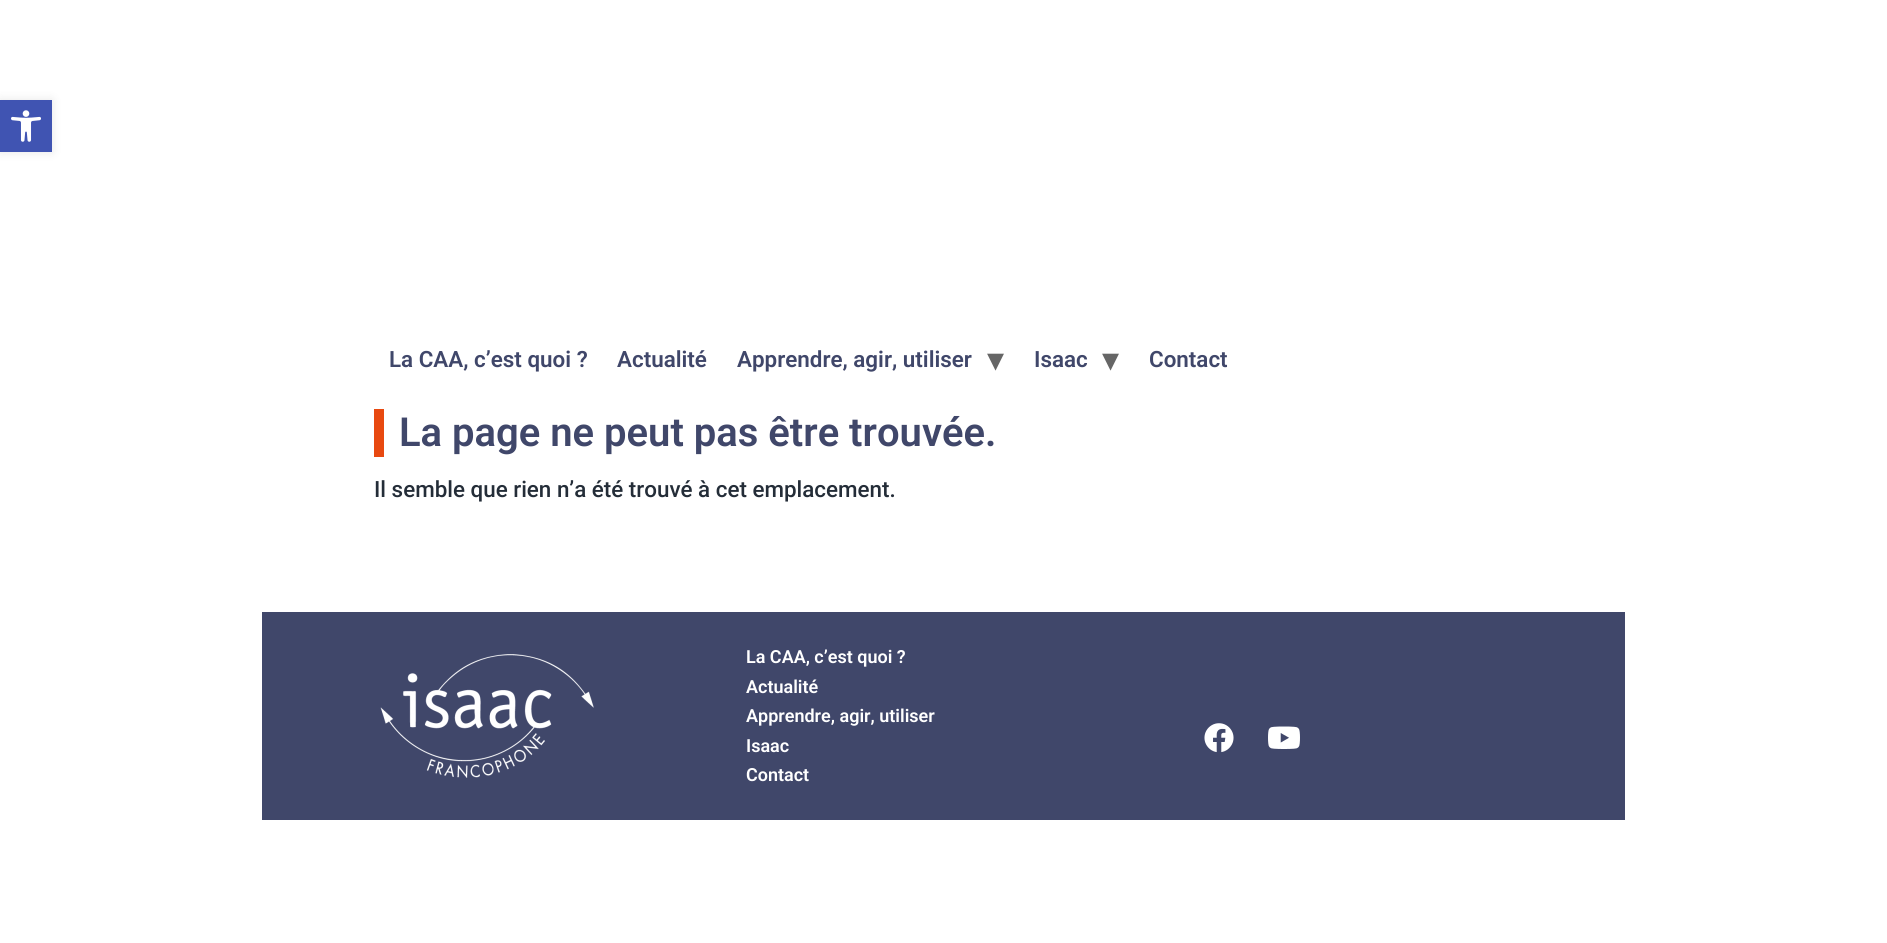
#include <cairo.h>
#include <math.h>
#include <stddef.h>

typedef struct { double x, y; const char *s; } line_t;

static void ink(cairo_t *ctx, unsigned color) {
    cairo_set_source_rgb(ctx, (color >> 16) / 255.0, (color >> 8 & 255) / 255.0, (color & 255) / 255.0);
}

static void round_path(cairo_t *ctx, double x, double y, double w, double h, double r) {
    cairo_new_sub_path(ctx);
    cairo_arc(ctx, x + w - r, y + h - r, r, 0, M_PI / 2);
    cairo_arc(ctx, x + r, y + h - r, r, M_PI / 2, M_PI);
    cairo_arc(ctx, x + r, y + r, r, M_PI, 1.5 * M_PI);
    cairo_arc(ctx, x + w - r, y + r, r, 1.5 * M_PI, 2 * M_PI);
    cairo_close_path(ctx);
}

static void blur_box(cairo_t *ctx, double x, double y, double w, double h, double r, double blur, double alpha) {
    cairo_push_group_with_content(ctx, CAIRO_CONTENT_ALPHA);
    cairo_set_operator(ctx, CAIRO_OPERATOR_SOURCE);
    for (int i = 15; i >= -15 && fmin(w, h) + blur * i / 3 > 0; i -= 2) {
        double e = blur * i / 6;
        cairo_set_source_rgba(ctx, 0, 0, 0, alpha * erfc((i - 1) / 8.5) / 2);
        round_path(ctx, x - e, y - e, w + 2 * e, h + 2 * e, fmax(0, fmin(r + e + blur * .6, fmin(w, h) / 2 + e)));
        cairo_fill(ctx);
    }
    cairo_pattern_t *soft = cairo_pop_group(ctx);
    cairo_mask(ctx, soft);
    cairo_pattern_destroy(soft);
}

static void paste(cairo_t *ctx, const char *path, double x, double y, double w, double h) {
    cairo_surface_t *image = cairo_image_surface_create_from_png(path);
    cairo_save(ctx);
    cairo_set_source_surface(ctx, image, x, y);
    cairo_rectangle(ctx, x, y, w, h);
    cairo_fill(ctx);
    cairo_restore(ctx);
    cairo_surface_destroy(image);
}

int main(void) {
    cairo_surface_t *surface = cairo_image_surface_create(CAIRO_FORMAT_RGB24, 1887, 943);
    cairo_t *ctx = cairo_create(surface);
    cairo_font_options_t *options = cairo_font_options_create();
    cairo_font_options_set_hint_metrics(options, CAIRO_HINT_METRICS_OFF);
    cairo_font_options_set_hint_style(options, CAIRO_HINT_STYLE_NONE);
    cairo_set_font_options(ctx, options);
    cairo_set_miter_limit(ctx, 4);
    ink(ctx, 0xFFFFFF);
    cairo_paint(ctx);
    ink(ctx, 0x000000);
    blur_box(ctx, 0, 100, 52, 52, 0, 5, 0.1);
    ink(ctx, 0x4054B2);
    cairo_rectangle(ctx, 0, 100, 52, 52);
    cairo_fill(ctx);
    paste(ctx, "media/1.png", 11, 110, 30, 32);
    cairo_select_font_face(ctx, "Roboto SemiBold", CAIRO_FONT_SLANT_NORMAL, CAIRO_FONT_WEIGHT_NORMAL);
    cairo_set_font_size(ctx, 22.4);
    ink(ctx, 0x40476A);
    {
        static const line_t items[] = {
            {389, 367, "La CAA, c’est quoi ?"},
            {617, 367, "Actualité"},
            {737, 367, "Apprendre, agir, utiliser"},
        };
        for (size_t i = 0; i < sizeof items / sizeof *items; i++) {
            cairo_move_to(ctx, items[i].x, items[i].y);
            cairo_show_text(ctx, items[i].s);
        }
    }
    cairo_select_font_face(ctx, "DejaVu Sans", CAIRO_FONT_SLANT_NORMAL, CAIRO_FONT_WEIGHT_NORMAL);
    cairo_set_font_size(ctx, 34);
    ink(ctx, 0x666666);
    cairo_move_to(ctx, 987, 371);
    cairo_show_text(ctx, "▾");
    cairo_select_font_face(ctx, "Roboto SemiBold", CAIRO_FONT_SLANT_NORMAL, CAIRO_FONT_WEIGHT_NORMAL);
    cairo_set_font_size(ctx, 22.4);
    ink(ctx, 0x40476A);
    cairo_move_to(ctx, 1034, 367);
    cairo_show_text(ctx, "Isaac");
    cairo_select_font_face(ctx, "DejaVu Sans", CAIRO_FONT_SLANT_NORMAL, CAIRO_FONT_WEIGHT_NORMAL);
    cairo_set_font_size(ctx, 34);
    ink(ctx, 0x666666);
    cairo_move_to(ctx, 1102, 371);
    cairo_show_text(ctx, "▾");
    cairo_select_font_face(ctx, "Roboto SemiBold", CAIRO_FONT_SLANT_NORMAL, CAIRO_FONT_WEIGHT_NORMAL);
    cairo_set_font_size(ctx, 22.4);
    ink(ctx, 0x40476A);
    cairo_move_to(ctx, 1149, 367);
    cairo_show_text(ctx, "Contact");
    ink(ctx, 0xE84910);
    cairo_rectangle(ctx, 374, 409, 10, 48);
    cairo_fill(ctx);
    cairo_set_font_size(ctx, 40);
    ink(ctx, 0x40476A);
    cairo_move_to(ctx, 399, 446);
    cairo_show_text(ctx, "La page ne peut pas être trouvée.");
    cairo_select_font_face(ctx, "Roboto Medium", CAIRO_FONT_SLANT_NORMAL, CAIRO_FONT_WEIGHT_NORMAL);
    cairo_set_font_size(ctx, 22.4);
    ink(ctx, 0x242D38);
    cairo_move_to(ctx, 374, 497);
    cairo_show_text(ctx, "Il semble que rien n’a été trouvé à cet emplacement.");
    ink(ctx, 0x40476A);
    cairo_rectangle(ctx, 262, 612, 1363, 208);
    cairo_fill(ctx);
    paste(ctx, "media/2.png", 380, 654, 214, 124);
    cairo_select_font_face(ctx, "Roboto SemiBold", CAIRO_FONT_SLANT_NORMAL, CAIRO_FONT_WEIGHT_NORMAL);
    cairo_set_font_size(ctx, 18);
    ink(ctx, 0xFFFFFF);
    {
        static const line_t items[] = {
            {746, 663, "La CAA, c’est quoi ?"},
            {746, 693, "Actualité"},
            {746, 722, "Apprendre, agir, utiliser"},
            {746, 752, "Isaac"},
            {746, 781, "Contact"},
        };
        for (size_t i = 0; i < sizeof items / sizeof *items; i++) {
            cairo_move_to(ctx, items[i].x, items[i].y);
            cairo_show_text(ctx, items[i].s);
        }
    }
    paste(ctx, "media/3.png", 1204, 723, 30, 30);
    paste(ctx, "media/4.png", 1268, 726, 32, 23);
    cairo_surface_write_to_png(surface, "image.png");
    cairo_font_options_destroy(options);
    cairo_destroy(ctx);
    cairo_surface_destroy(surface);
    return 0;
}
